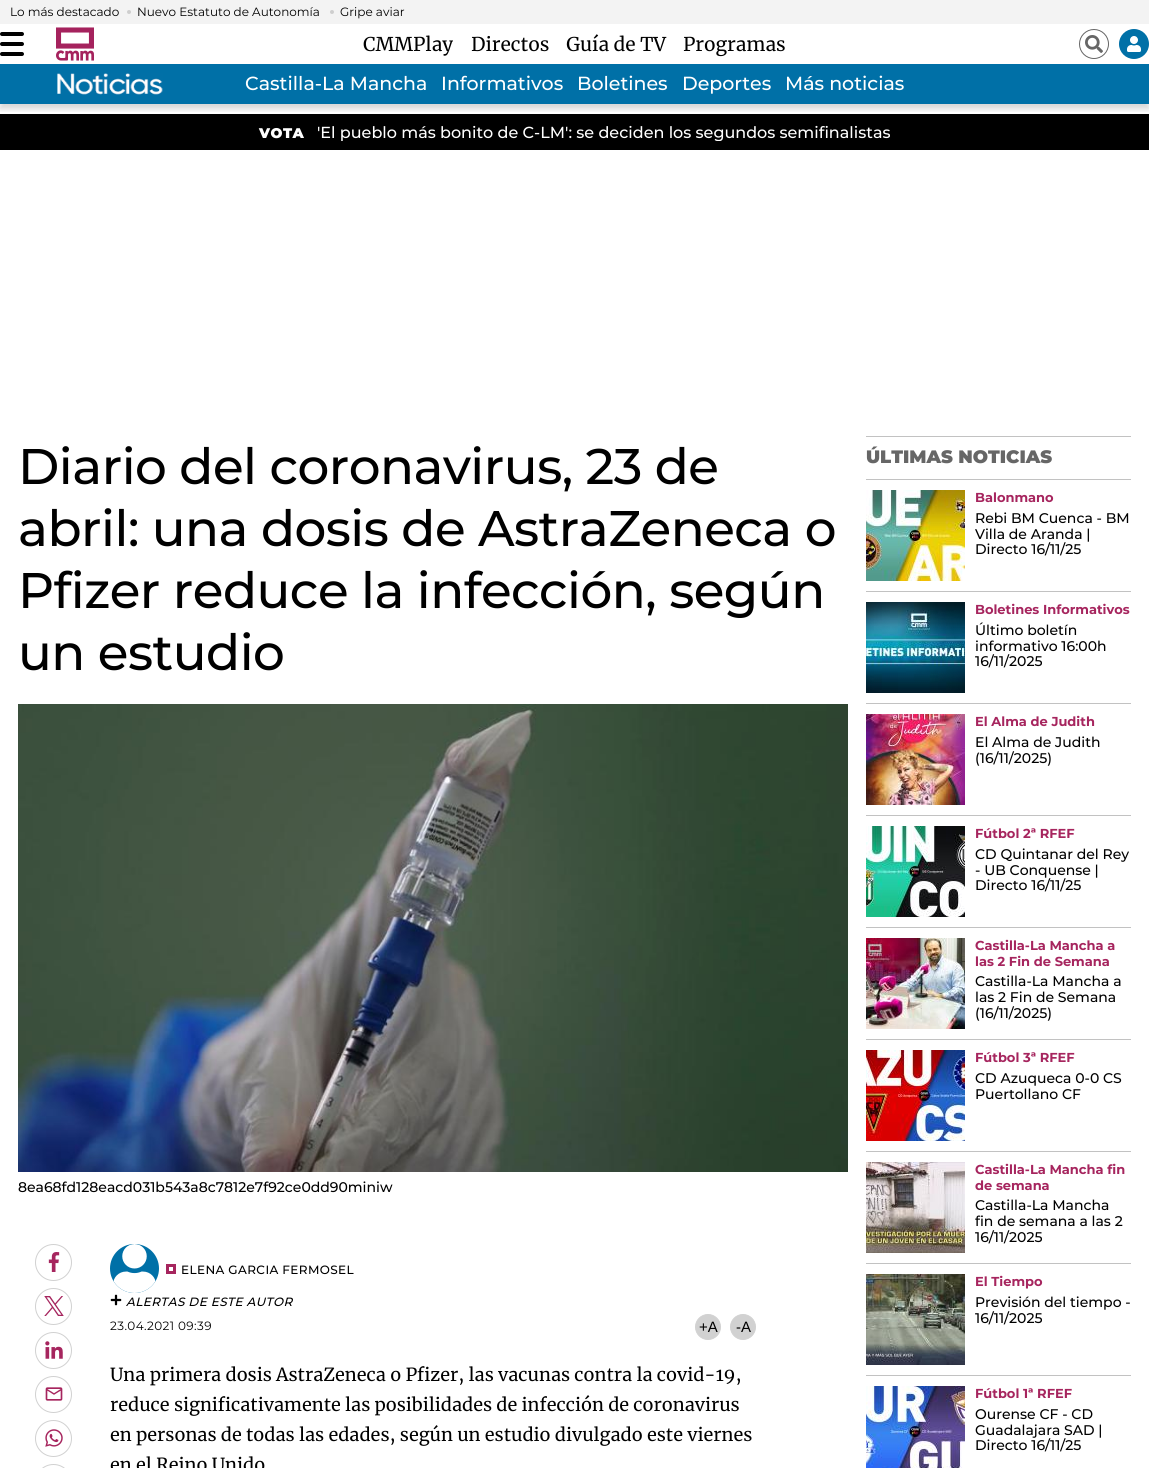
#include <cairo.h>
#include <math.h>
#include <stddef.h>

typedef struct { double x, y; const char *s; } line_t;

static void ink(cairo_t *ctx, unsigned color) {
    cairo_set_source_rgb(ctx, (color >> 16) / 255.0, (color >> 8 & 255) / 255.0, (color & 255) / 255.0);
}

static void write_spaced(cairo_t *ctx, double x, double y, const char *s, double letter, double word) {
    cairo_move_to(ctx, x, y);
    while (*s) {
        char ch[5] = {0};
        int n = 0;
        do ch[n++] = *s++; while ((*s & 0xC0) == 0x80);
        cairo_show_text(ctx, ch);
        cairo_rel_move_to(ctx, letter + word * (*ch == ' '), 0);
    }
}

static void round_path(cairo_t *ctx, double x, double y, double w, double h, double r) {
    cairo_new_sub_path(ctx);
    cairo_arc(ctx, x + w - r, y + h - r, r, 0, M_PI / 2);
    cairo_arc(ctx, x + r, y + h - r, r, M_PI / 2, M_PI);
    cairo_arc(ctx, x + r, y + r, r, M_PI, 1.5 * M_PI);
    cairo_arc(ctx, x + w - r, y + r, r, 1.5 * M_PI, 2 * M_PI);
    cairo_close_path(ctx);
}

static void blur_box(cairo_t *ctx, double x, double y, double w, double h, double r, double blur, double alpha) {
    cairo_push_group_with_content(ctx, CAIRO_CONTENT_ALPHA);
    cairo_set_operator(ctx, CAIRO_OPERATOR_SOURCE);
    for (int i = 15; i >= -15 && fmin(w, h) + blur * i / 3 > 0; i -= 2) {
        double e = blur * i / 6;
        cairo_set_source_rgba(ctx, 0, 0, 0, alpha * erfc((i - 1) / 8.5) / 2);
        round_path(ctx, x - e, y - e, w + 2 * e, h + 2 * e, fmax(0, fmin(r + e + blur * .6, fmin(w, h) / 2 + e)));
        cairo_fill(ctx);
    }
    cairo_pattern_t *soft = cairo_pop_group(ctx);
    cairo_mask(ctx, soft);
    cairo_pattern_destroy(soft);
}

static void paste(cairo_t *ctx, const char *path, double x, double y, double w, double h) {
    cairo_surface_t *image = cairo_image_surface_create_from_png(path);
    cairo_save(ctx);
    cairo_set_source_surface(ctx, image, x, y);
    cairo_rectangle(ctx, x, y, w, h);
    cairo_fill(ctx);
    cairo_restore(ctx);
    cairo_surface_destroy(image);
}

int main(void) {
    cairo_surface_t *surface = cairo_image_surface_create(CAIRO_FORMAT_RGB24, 1149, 1468);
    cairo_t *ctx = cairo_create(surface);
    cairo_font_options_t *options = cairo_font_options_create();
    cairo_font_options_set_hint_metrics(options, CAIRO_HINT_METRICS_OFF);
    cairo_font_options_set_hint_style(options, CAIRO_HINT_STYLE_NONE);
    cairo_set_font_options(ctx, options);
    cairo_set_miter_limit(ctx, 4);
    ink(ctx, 0xFFFFFF);
    cairo_paint(ctx);
    ink(ctx, 0xF3F3F3);
    cairo_rectangle(ctx, 0, 0, 1149, 24);
    cairo_fill(ctx);
    cairo_select_font_face(ctx, "Montserrat", CAIRO_FONT_SLANT_NORMAL, CAIRO_FONT_WEIGHT_NORMAL);
    cairo_set_font_size(ctx, 12);
    ink(ctx, 0x000000);
    cairo_move_to(ctx, 10, 16);
    cairo_show_text(ctx, "Lo más destacado");
    ink(ctx, 0xCECECE);
    cairo_new_path(ctx);
    cairo_arc(ctx, 129, 12, 2, 0, 2 * M_PI);
    cairo_fill(ctx);
    ink(ctx, 0x000000);
    cairo_move_to(ctx, 137, 16);
    cairo_show_text(ctx, "Nuevo Estatuto de Autonomía");
    ink(ctx, 0xCECECE);
    cairo_new_path(ctx);
    cairo_arc(ctx, 332, 12, 2, 0, 2 * M_PI);
    cairo_fill(ctx);
    ink(ctx, 0x000000);
    cairo_move_to(ctx, 340, 16);
    cairo_show_text(ctx, "Gripe aviar");
    cairo_rectangle(ctx, 0, 114, 1149, 36);
    cairo_fill(ctx);
    cairo_save(ctx);
    cairo_rectangle(ctx, 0, 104, 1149, 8);
    cairo_clip(ctx);
    ink(ctx, 0x000000);
    blur_box(ctx, 0, 29, 1149, 80, 0, 3, 0.16);
    cairo_restore(ctx);
    round_path(ctx, 0, 42, 24, 4, 2);
    cairo_fill(ctx);
    round_path(ctx, 0, 32, 24, 4, 2);
    cairo_fill(ctx);
    round_path(ctx, 0, 52, 24, 4, 2);
    cairo_fill(ctx);
    paste(ctx, "media/1.png", 56, 27, 38, 34);
    cairo_select_font_face(ctx, "Merriweather", CAIRO_FONT_SLANT_NORMAL, CAIRO_FONT_WEIGHT_NORMAL);
    cairo_set_font_size(ctx, 19);
    {
        static const line_t items[] = {
            {363, 51, "CMMPlay"},
            {471, 51, "Directos"},
            {566, 51, "Guía de TV"},
            {683, 51, "Programas"},
        };
        for (size_t i = 0; i < sizeof items / sizeof *items; i++) {
            cairo_move_to(ctx, items[i].x, items[i].y);
            cairo_show_text(ctx, items[i].s);
        }
    }
    cairo_new_path(ctx);
    cairo_arc(ctx, 1094, 44, 14.5, 0, 2 * M_PI);
    ink(ctx, 0x666666);
    cairo_set_line_width(ctx, 1);
    cairo_stroke(ctx);
    paste(ctx, "media/2.png", 1085, 35, 18, 18);
    ink(ctx, 0x0070A7);
    cairo_arc(ctx, 1134, 44, 15, 0, 2 * M_PI);
    cairo_fill(ctx);
    paste(ctx, "media/3.png", 1127, 36, 14, 16);
    cairo_rectangle(ctx, 0, 64, 1149, 40);
    cairo_fill(ctx);
    paste(ctx, "media/4.png", 57, 73, 106, 22);
    cairo_select_font_face(ctx, "Montserrat Medium", CAIRO_FONT_SLANT_NORMAL, CAIRO_FONT_WEIGHT_NORMAL);
    ink(ctx, 0xFFFFFF);
    {
        static const line_t items[] = {
            {245, 90, "Castilla-La Mancha"},
            {441, 90, "Informativos"},
            {577, 90, "Boletines"},
            {682, 90, "Deportes"},
            {785, 90, "Más noticias"},
        };
        for (size_t i = 0; i < sizeof items / sizeof *items; i++) {
            cairo_move_to(ctx, items[i].x, items[i].y);
            cairo_show_text(ctx, items[i].s);
        }
    }
    cairo_select_font_face(ctx, "Montserrat Black", CAIRO_FONT_SLANT_NORMAL, CAIRO_FONT_WEIGHT_NORMAL);
    cairo_set_font_size(ctx, 14);
    write_spaced(ctx, 259, 138, "VOTA", 0.5, 0);
    cairo_save(ctx);
    cairo_rectangle(ctx, 303, 123, 587, 18);
    cairo_clip(ctx);
    cairo_select_font_face(ctx, "Montserrat Medium", CAIRO_FONT_SLANT_NORMAL, CAIRO_FONT_WEIGHT_NORMAL);
    cairo_set_font_size(ctx, 16);
    cairo_move_to(ctx, 317, 138);
    cairo_show_text(ctx, "'El pueblo más bonito de C-LM': se deciden los segundos semifinalistas");
    cairo_restore(ctx);
    cairo_select_font_face(ctx, "Montserrat Medium", CAIRO_FONT_SLANT_NORMAL, CAIRO_FONT_WEIGHT_NORMAL);
    cairo_set_font_size(ctx, 50);
    ink(ctx, 0x000000);
    {
        static const line_t items[] = {
            {18, 484, "Diario del coronavirus, 23 de"},
            {18, 546, "abril: una dosis de AstraZeneca o"},
            {18, 608, "Pfizer reduce la infección, según"},
            {18, 670, "un estudio"},
        };
        for (size_t i = 0; i < sizeof items / sizeof *items; i++) {
            write_spaced(ctx, items[i].x, items[i].y, items[i].s, -0.5, 0);
        }
    }
    paste(ctx, "media/5.png", 18, 704, 830, 468);
    cairo_set_font_size(ctx, 14);
    cairo_move_to(ctx, 18, 1192);
    cairo_show_text(ctx, "8ea68fd128eacd031b543a8c7812e7f92ce0dd90miniw");
    cairo_new_path(ctx);
    cairo_arc(ctx, 53.5, 1262.5, 18, 0, 2 * M_PI);
    ink(ctx, 0xD1D1D1);
    cairo_stroke(ctx);
    paste(ctx, "media/6.png", 48, 1252, 12, 20);
    cairo_arc(ctx, 53.5, 1306.5, 18, 0, 2 * M_PI);
    cairo_stroke(ctx);
    paste(ctx, "media/7.png", 44, 1296, 20, 20);
    cairo_arc(ctx, 53.5, 1350.5, 18, 0, 2 * M_PI);
    cairo_stroke(ctx);
    paste(ctx, "media/8.png", 45, 1341, 18, 18);
    cairo_arc(ctx, 53.5, 1394.5, 18, 0, 2 * M_PI);
    cairo_stroke(ctx);
    paste(ctx, "media/9.png", 45, 1387, 18, 14);
    cairo_arc(ctx, 53.5, 1438.5, 18, 0, 2 * M_PI);
    cairo_stroke(ctx);
    paste(ctx, "media/10.png", 45, 1429, 18, 18);
    round_path(ctx, 35.5, 1464.5, 36, 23, 18);
    cairo_stroke(ctx);
    ink(ctx, 0x0070A7);
    cairo_arc(ctx, 134.5, 1268.5, 24.5, 0, 2 * M_PI);
    cairo_fill(ctx);
    paste(ctx, "media/11.png", 113, 1244, 43, 49);
    cairo_rectangle(ctx, 167.5, 1265.5, 7, 7);
    ink(ctx, 0xA6255E);
    cairo_set_line_width(ctx, 3);
    cairo_stroke(ctx);
    cairo_set_font_size(ctx, 12);
    ink(ctx, 0x000000);
    write_spaced(ctx, 181, 1274, "ELENA GARCIA FERMOSEL", 0.4, 0);
    paste(ctx, "media/12.png", 110, 1294, 12, 12);
    cairo_select_font_face(ctx, "Montserrat Medium", CAIRO_FONT_SLANT_ITALIC, CAIRO_FONT_WEIGHT_NORMAL);
    write_spaced(ctx, 126, 1306, "ALERTAS DE ESTE AUTOR", 0.4, 0);
    cairo_select_font_face(ctx, "Montserrat", CAIRO_FONT_SLANT_NORMAL, CAIRO_FONT_WEIGHT_NORMAL);
    write_spaced(ctx, 110, 1330, "23.04.2021 09:39", 0.4, 0);
    ink(ctx, 0xD1D1D1);
    cairo_new_path(ctx);
    cairo_arc(ctx, 708, 1327, 12.5, 0, 2 * M_PI);
    cairo_fill_preserve(ctx);
    cairo_set_line_width(ctx, 1);
    cairo_stroke(ctx);
    cairo_select_font_face(ctx, "Liberation Sans", CAIRO_FONT_SLANT_NORMAL, CAIRO_FONT_WEIGHT_NORMAL);
    cairo_set_font_size(ctx, 15);
    ink(ctx, 0x000000);
    cairo_move_to(ctx, 699, 1332);
    cairo_show_text(ctx, "+A");
    ink(ctx, 0xD1D1D1);
    cairo_new_path(ctx);
    cairo_arc(ctx, 743, 1327, 12.5, 0, 2 * M_PI);
    cairo_fill_preserve(ctx);
    cairo_stroke(ctx);
    ink(ctx, 0x000000);
    cairo_move_to(ctx, 736, 1332);
    cairo_show_text(ctx, "-A");
    cairo_select_font_face(ctx, "Merriweather", CAIRO_FONT_SLANT_NORMAL, CAIRO_FONT_WEIGHT_NORMAL);
    cairo_set_font_size(ctx, 18);
    {
        static const line_t items[] = {
            {110, 1381, "Una primera dosis AstraZeneca o Pfizer, las vacunas contra la covid-19,"},
            {110, 1411, "reduce significativamente las posibilidades de infección de coronavirus"},
            {110, 1441, "en personas de todas las edades, según un estudio divulgado este viernes"},
            {110, 1471, "en el Reino Unido"},
        };
        for (size_t i = 0; i < sizeof items / sizeof *items; i++) {
            cairo_move_to(ctx, items[i].x, items[i].y);
            cairo_show_text(ctx, items[i].s);
        }
    }
    ink(ctx, 0xC2C2C2);
    cairo_rectangle(ctx, 866, 436, 265, 1);
    cairo_fill(ctx);
    cairo_rectangle(ctx, 866, 479, 265, 1);
    cairo_fill(ctx);
    cairo_select_font_face(ctx, "Montserrat Black", CAIRO_FONT_SLANT_NORMAL, CAIRO_FONT_WEIGHT_NORMAL);
    ink(ctx, 0x666666);
    cairo_move_to(ctx, 866, 463);
    cairo_show_text(ctx, "ÚLTIMAS NOTICIAS");
    ink(ctx, 0xC2C2C2);
    cairo_rectangle(ctx, 866, 591, 265, 1);
    cairo_fill(ctx);
    paste(ctx, "media/13.png", 866, 490, 99, 91);
    cairo_select_font_face(ctx, "Montserrat", CAIRO_FONT_SLANT_NORMAL, CAIRO_FONT_WEIGHT_BOLD);
    cairo_set_font_size(ctx, 13);
    ink(ctx, 0xA6255E);
    cairo_move_to(ctx, 975, 502);
    cairo_show_text(ctx, "Balonmano");
    cairo_select_font_face(ctx, "Montserrat Medium", CAIRO_FONT_SLANT_NORMAL, CAIRO_FONT_WEIGHT_NORMAL);
    cairo_set_font_size(ctx, 14);
    ink(ctx, 0x000000);
    {
        static const line_t items[] = {
            {975, 523, "Rebi BM Cuenca - BM"},
            {975, 539, "Villa de Aranda |"},
            {975, 554, "Directo 16/11/25"},
        };
        for (size_t i = 0; i < sizeof items / sizeof *items; i++) {
            cairo_move_to(ctx, items[i].x, items[i].y);
            cairo_show_text(ctx, items[i].s);
        }
    }
    ink(ctx, 0xC2C2C2);
    cairo_rectangle(ctx, 866, 703, 265, 1);
    cairo_fill(ctx);
    paste(ctx, "media/14.png", 866, 602, 99, 91);
    cairo_select_font_face(ctx, "Montserrat", CAIRO_FONT_SLANT_NORMAL, CAIRO_FONT_WEIGHT_BOLD);
    cairo_set_font_size(ctx, 13);
    ink(ctx, 0xA6255E);
    cairo_move_to(ctx, 975, 614);
    cairo_show_text(ctx, "Boletines Informativos");
    cairo_select_font_face(ctx, "Montserrat Medium", CAIRO_FONT_SLANT_NORMAL, CAIRO_FONT_WEIGHT_NORMAL);
    cairo_set_font_size(ctx, 14);
    ink(ctx, 0x000000);
    {
        static const line_t items[] = {
            {975, 635, "Último boletín"},
            {975, 651, "informativo 16:00h"},
            {975, 666, "16/11/2025"},
        };
        for (size_t i = 0; i < sizeof items / sizeof *items; i++) {
            cairo_move_to(ctx, items[i].x, items[i].y);
            cairo_show_text(ctx, items[i].s);
        }
    }
    ink(ctx, 0xC2C2C2);
    cairo_rectangle(ctx, 866, 815, 265, 1);
    cairo_fill(ctx);
    paste(ctx, "media/15.png", 866, 714, 99, 91);
    cairo_select_font_face(ctx, "Montserrat", CAIRO_FONT_SLANT_NORMAL, CAIRO_FONT_WEIGHT_BOLD);
    cairo_set_font_size(ctx, 13);
    ink(ctx, 0xA6255E);
    cairo_move_to(ctx, 975, 726);
    cairo_show_text(ctx, "El Alma de Judith");
    cairo_select_font_face(ctx, "Montserrat Medium", CAIRO_FONT_SLANT_NORMAL, CAIRO_FONT_WEIGHT_NORMAL);
    cairo_set_font_size(ctx, 14);
    ink(ctx, 0x000000);
    cairo_move_to(ctx, 975, 747);
    cairo_show_text(ctx, "El Alma de Judith");
    cairo_move_to(ctx, 975, 763);
    cairo_show_text(ctx, "(16/11/2025)");
    ink(ctx, 0xC2C2C2);
    cairo_rectangle(ctx, 866, 927, 265, 1);
    cairo_fill(ctx);
    paste(ctx, "media/16.png", 866, 826, 99, 91);
    cairo_select_font_face(ctx, "Montserrat", CAIRO_FONT_SLANT_NORMAL, CAIRO_FONT_WEIGHT_BOLD);
    cairo_set_font_size(ctx, 13);
    ink(ctx, 0xA6255E);
    cairo_move_to(ctx, 975, 838);
    cairo_show_text(ctx, "Fútbol 2ª RFEF");
    cairo_select_font_face(ctx, "Montserrat Medium", CAIRO_FONT_SLANT_NORMAL, CAIRO_FONT_WEIGHT_NORMAL);
    cairo_set_font_size(ctx, 14);
    ink(ctx, 0x000000);
    {
        static const line_t items[] = {
            {975, 859, "CD Quintanar del Rey"},
            {975, 875, "- UB Conquense |"},
            {975, 890, "Directo 16/11/25"},
        };
        for (size_t i = 0; i < sizeof items / sizeof *items; i++) {
            cairo_move_to(ctx, items[i].x, items[i].y);
            cairo_show_text(ctx, items[i].s);
        }
    }
    ink(ctx, 0xC2C2C2);
    cairo_rectangle(ctx, 866, 1039, 265, 1);
    cairo_fill(ctx);
    paste(ctx, "media/17.png", 866, 938, 99, 91);
    cairo_select_font_face(ctx, "Montserrat", CAIRO_FONT_SLANT_NORMAL, CAIRO_FONT_WEIGHT_BOLD);
    cairo_set_font_size(ctx, 13);
    ink(ctx, 0xA6255E);
    cairo_move_to(ctx, 975, 950);
    cairo_show_text(ctx, "Castilla-La Mancha a");
    cairo_move_to(ctx, 975, 966);
    cairo_show_text(ctx, "las 2 Fin de Semana");
    cairo_select_font_face(ctx, "Montserrat Medium", CAIRO_FONT_SLANT_NORMAL, CAIRO_FONT_WEIGHT_NORMAL);
    cairo_set_font_size(ctx, 14);
    ink(ctx, 0x000000);
    {
        static const line_t items[] = {
            {975, 986, "Castilla-La Mancha a"},
            {975, 1002, "las 2 Fin de Semana"},
            {975, 1018, "(16/11/2025)"},
        };
        for (size_t i = 0; i < sizeof items / sizeof *items; i++) {
            cairo_move_to(ctx, items[i].x, items[i].y);
            cairo_show_text(ctx, items[i].s);
        }
    }
    ink(ctx, 0xC2C2C2);
    cairo_rectangle(ctx, 866, 1151, 265, 1);
    cairo_fill(ctx);
    paste(ctx, "media/18.png", 866, 1050, 99, 91);
    cairo_select_font_face(ctx, "Montserrat", CAIRO_FONT_SLANT_NORMAL, CAIRO_FONT_WEIGHT_BOLD);
    cairo_set_font_size(ctx, 13);
    ink(ctx, 0xA6255E);
    cairo_move_to(ctx, 975, 1062);
    cairo_show_text(ctx, "Fútbol 3ª RFEF");
    cairo_select_font_face(ctx, "Montserrat Medium", CAIRO_FONT_SLANT_NORMAL, CAIRO_FONT_WEIGHT_NORMAL);
    cairo_set_font_size(ctx, 14);
    ink(ctx, 0x000000);
    cairo_move_to(ctx, 975, 1083);
    cairo_show_text(ctx, "CD Azuqueca 0-0 CS");
    cairo_move_to(ctx, 975, 1099);
    cairo_show_text(ctx, "Puertollano CF");
    ink(ctx, 0xC2C2C2);
    cairo_rectangle(ctx, 866, 1263, 265, 1);
    cairo_fill(ctx);
    paste(ctx, "media/19.png", 866, 1162, 99, 91);
    cairo_select_font_face(ctx, "Montserrat", CAIRO_FONT_SLANT_NORMAL, CAIRO_FONT_WEIGHT_BOLD);
    cairo_set_font_size(ctx, 13);
    ink(ctx, 0xA6255E);
    cairo_move_to(ctx, 975, 1174);
    cairo_show_text(ctx, "Castilla-La Mancha fin");
    cairo_move_to(ctx, 975, 1190);
    cairo_show_text(ctx, "de semana");
    cairo_select_font_face(ctx, "Montserrat Medium", CAIRO_FONT_SLANT_NORMAL, CAIRO_FONT_WEIGHT_NORMAL);
    cairo_set_font_size(ctx, 14);
    ink(ctx, 0x000000);
    {
        static const line_t items[] = {
            {975, 1210, "Castilla-La Mancha"},
            {975, 1226, "fin de semana a las 2"},
            {975, 1242, "16/11/2025"},
        };
        for (size_t i = 0; i < sizeof items / sizeof *items; i++) {
            cairo_move_to(ctx, items[i].x, items[i].y);
            cairo_show_text(ctx, items[i].s);
        }
    }
    ink(ctx, 0xC2C2C2);
    cairo_rectangle(ctx, 866, 1375, 265, 1);
    cairo_fill(ctx);
    paste(ctx, "media/20.png", 866, 1274, 99, 91);
    cairo_select_font_face(ctx, "Montserrat", CAIRO_FONT_SLANT_NORMAL, CAIRO_FONT_WEIGHT_BOLD);
    cairo_set_font_size(ctx, 13);
    ink(ctx, 0xA6255E);
    cairo_move_to(ctx, 975, 1286);
    cairo_show_text(ctx, "El Tiempo");
    cairo_select_font_face(ctx, "Montserrat Medium", CAIRO_FONT_SLANT_NORMAL, CAIRO_FONT_WEIGHT_NORMAL);
    cairo_set_font_size(ctx, 14);
    ink(ctx, 0x000000);
    cairo_move_to(ctx, 975, 1307);
    cairo_show_text(ctx, "Previsión del tiempo -");
    cairo_move_to(ctx, 975, 1323);
    cairo_show_text(ctx, "16/11/2025");
    paste(ctx, "media/21.png", 866, 1386, 99, 82);
    cairo_select_font_face(ctx, "Montserrat", CAIRO_FONT_SLANT_NORMAL, CAIRO_FONT_WEIGHT_BOLD);
    cairo_set_font_size(ctx, 13);
    ink(ctx, 0xA6255E);
    cairo_move_to(ctx, 975, 1398);
    cairo_show_text(ctx, "Fútbol 1ª RFEF");
    cairo_select_font_face(ctx, "Montserrat Medium", CAIRO_FONT_SLANT_NORMAL, CAIRO_FONT_WEIGHT_NORMAL);
    cairo_set_font_size(ctx, 14);
    ink(ctx, 0x000000);
    {
        static const line_t items[] = {
            {975, 1419, "Ourense CF - CD"},
            {975, 1435, "Guadalajara SAD |"},
            {975, 1450, "Directo 16/11/25"},
        };
        for (size_t i = 0; i < sizeof items / sizeof *items; i++) {
            cairo_move_to(ctx, items[i].x, items[i].y);
            cairo_show_text(ctx, items[i].s);
        }
    }
    cairo_surface_write_to_png(surface, "image.png");
    cairo_font_options_destroy(options);
    cairo_destroy(ctx);
    cairo_surface_destroy(surface);
    return 0;
}
